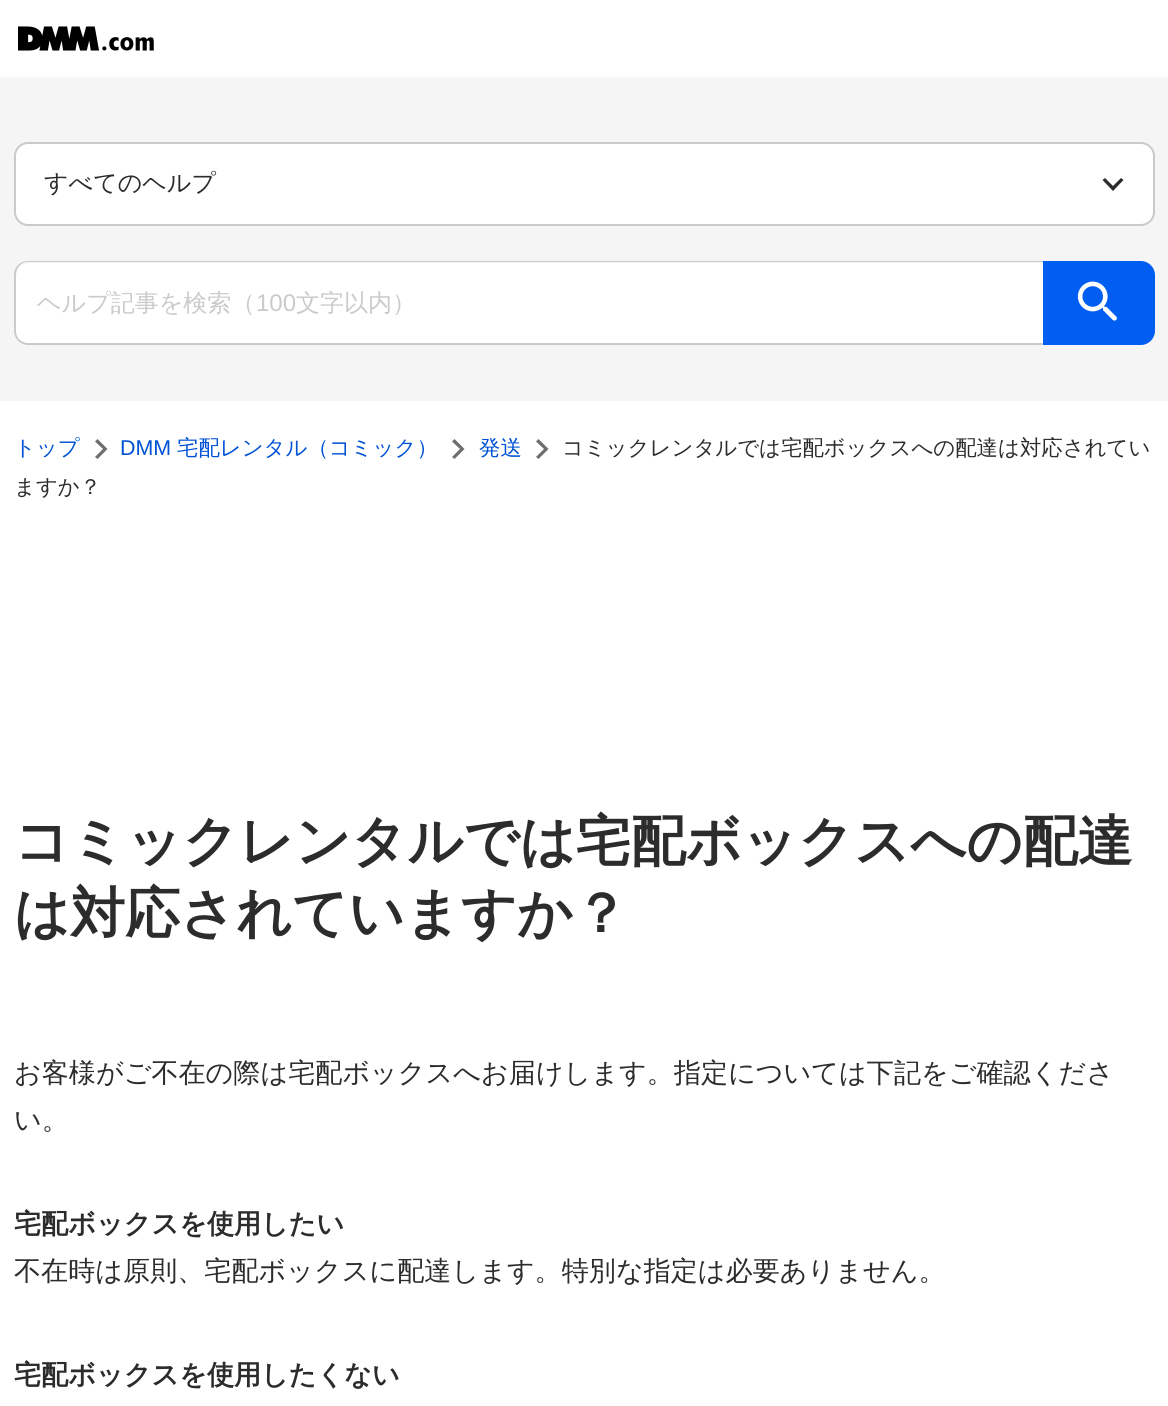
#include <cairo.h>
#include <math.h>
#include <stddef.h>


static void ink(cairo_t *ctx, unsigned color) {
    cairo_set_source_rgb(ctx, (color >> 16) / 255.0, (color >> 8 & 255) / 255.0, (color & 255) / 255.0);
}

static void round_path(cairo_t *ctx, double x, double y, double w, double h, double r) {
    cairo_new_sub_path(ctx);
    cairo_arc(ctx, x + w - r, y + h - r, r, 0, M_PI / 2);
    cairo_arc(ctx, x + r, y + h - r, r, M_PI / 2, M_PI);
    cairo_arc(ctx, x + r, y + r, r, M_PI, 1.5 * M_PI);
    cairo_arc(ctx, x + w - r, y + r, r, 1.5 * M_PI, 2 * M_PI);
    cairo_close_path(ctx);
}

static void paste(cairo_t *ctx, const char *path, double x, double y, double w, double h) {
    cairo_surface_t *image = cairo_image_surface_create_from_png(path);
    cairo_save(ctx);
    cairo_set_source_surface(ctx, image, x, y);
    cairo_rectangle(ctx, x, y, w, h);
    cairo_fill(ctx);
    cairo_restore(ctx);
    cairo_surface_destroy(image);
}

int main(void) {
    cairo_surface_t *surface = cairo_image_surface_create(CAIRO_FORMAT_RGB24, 1168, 1406);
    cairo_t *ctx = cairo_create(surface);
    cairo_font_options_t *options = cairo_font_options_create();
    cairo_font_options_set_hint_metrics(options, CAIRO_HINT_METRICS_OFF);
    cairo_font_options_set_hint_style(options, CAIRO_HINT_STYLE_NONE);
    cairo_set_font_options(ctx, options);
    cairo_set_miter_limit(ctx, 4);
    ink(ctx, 0xFFFFFF);
    cairo_paint(ctx);
    ink(ctx, 0xF7F7F7);
    cairo_rectangle(ctx, 0, 77, 1168, 2);
    cairo_fill(ctx);
    paste(ctx, "media/1.png", 18, 26, 136, 25);
    ink(ctx, 0xF5F5F5);
    cairo_rectangle(ctx, 0, 79, 1168, 322);
    cairo_fill(ctx);
    ink(ctx, 0xFFFFFF);
    round_path(ctx, 15, 143, 1139, 82, 13);
    cairo_fill_preserve(ctx);
    ink(ctx, 0xCACACA);
    cairo_stroke(ctx);
    cairo_select_font_face(ctx, "WenQuanYi Zen Hei Medium", CAIRO_FONT_SLANT_NORMAL, CAIRO_FONT_WEIGHT_NORMAL);
    cairo_set_font_size(ctx, 24);
    ink(ctx, 0x2C2C2C);
    cairo_move_to(ctx, 44, 191);
    cairo_show_text(ctx, "すべてのヘルプ");
    cairo_new_path(ctx);
    cairo_move_to(ctx, 1105, 178);
    cairo_line_to(ctx, 1113, 186);
    cairo_line_to(ctx, 1121, 178);
    cairo_line_to(ctx, 1123.5, 180);
    cairo_line_to(ctx, 1113, 191);
    cairo_line_to(ctx, 1102.5, 180);
    cairo_close_path(ctx);
    cairo_fill(ctx);
    ink(ctx, 0xFFFFFF);
    cairo_new_path(ctx);
    cairo_move_to(ctx, 28, 263);
    cairo_line_to(ctx, 1043, 263);
    cairo_line_to(ctx, 1043, 343);
    cairo_line_to(ctx, 28, 343);
    cairo_curve_to(ctx, 21.5, 343, 16, 337.5, 16, 331);
    cairo_line_to(ctx, 16, 275);
    cairo_curve_to(ctx, 16, 268.5, 21.5, 263, 28, 263);
    cairo_close_path(ctx);
    cairo_fill(ctx);
    ink(ctx, 0xCACACA);
    cairo_set_fill_rule(ctx, CAIRO_FILL_RULE_EVEN_ODD);
    cairo_new_path(ctx);
    cairo_move_to(ctx, 28, 261);
    cairo_line_to(ctx, 1043, 261);
    cairo_line_to(ctx, 1043, 345);
    cairo_line_to(ctx, 28, 345);
    cairo_curve_to(ctx, 20, 345, 14, 338, 14, 331);
    cairo_line_to(ctx, 14, 275);
    cairo_curve_to(ctx, 14, 267, 20, 261, 28, 261);
    cairo_close_path(ctx);
    cairo_move_to(ctx, 28, 262);
    cairo_line_to(ctx, 1043, 262);
    cairo_line_to(ctx, 1043, 343);
    cairo_line_to(ctx, 28, 343);
    cairo_curve_to(ctx, 21, 343, 16, 338, 16, 331);
    cairo_line_to(ctx, 16, 275);
    cairo_curve_to(ctx, 16, 268, 21, 262, 28, 262);
    cairo_close_path(ctx);
    cairo_fill(ctx);
    cairo_move_to(ctx, 37, 311);
    cairo_show_text(ctx, "ヘルプ記事を検索（");
    cairo_select_font_face(ctx, "Liberation Sans", CAIRO_FONT_SLANT_NORMAL, CAIRO_FONT_WEIGHT_NORMAL);
    cairo_move_to(ctx, 256, 311);
    cairo_show_text(ctx, "100");
    cairo_select_font_face(ctx, "WenQuanYi Zen Hei Medium", CAIRO_FONT_SLANT_NORMAL, CAIRO_FONT_WEIGHT_NORMAL);
    cairo_move_to(ctx, 296, 311);
    cairo_show_text(ctx, "文字以内）");
    ink(ctx, 0x005EF3);
    cairo_new_path(ctx);
    cairo_move_to(ctx, 1043, 261);
    cairo_line_to(ctx, 1141, 261);
    cairo_curve_to(ctx, 1148.5, 261, 1155, 267.5, 1155, 275);
    cairo_line_to(ctx, 1155, 331);
    cairo_curve_to(ctx, 1155, 338.5, 1148.5, 345, 1141, 345);
    cairo_line_to(ctx, 1043, 345);
    cairo_close_path(ctx);
    cairo_fill(ctx);
    paste(ctx, "media/2.png", 1077, 281, 40, 40);
    ink(ctx, 0x6E6E6E);
    cairo_set_fill_rule(ctx, CAIRO_FILL_RULE_WINDING);
    cairo_new_path(ctx);
    cairo_move_to(ctx, 536, 457);
    cairo_line_to(ctx, 544, 449);
    cairo_line_to(ctx, 536, 441.5);
    cairo_line_to(ctx, 538.5, 439);
    cairo_line_to(ctx, 548.5, 449);
    cairo_line_to(ctx, 538.5, 459);
    cairo_close_path(ctx);
    cairo_fill(ctx);
    cairo_set_font_size(ctx, 21.4);
    ink(ctx, 0x2C2C2C);
    cairo_move_to(ctx, 562, 455);
    cairo_show_text(ctx, "コミックレンタルでは宅配ボックスへの配達は対応されてい");
    cairo_move_to(ctx, 14, 494);
    cairo_show_text(ctx, "ますか？");
    ink(ctx, 0x0052D4);
    cairo_move_to(ctx, 14, 455);
    cairo_show_text(ctx, "トップ");
    ink(ctx, 0x6E6E6E);
    cairo_new_path(ctx);
    cairo_move_to(ctx, 95, 457);
    cairo_line_to(ctx, 103, 449);
    cairo_line_to(ctx, 95, 441.5);
    cairo_line_to(ctx, 97.5, 439);
    cairo_line_to(ctx, 107.5, 449);
    cairo_line_to(ctx, 97.5, 459);
    cairo_close_path(ctx);
    cairo_fill(ctx);
    cairo_select_font_face(ctx, "Liberation Sans", CAIRO_FONT_SLANT_NORMAL, CAIRO_FONT_WEIGHT_NORMAL);
    ink(ctx, 0x0052D4);
    cairo_move_to(ctx, 120, 455);
    cairo_show_text(ctx, "DMM");
    cairo_select_font_face(ctx, "WenQuanYi Zen Hei Medium", CAIRO_FONT_SLANT_NORMAL, CAIRO_FONT_WEIGHT_NORMAL);
    cairo_move_to(ctx, 177, 455);
    cairo_show_text(ctx, "宅配レンタル（コミック）");
    ink(ctx, 0x6E6E6E);
    cairo_new_path(ctx);
    cairo_move_to(ctx, 452, 457);
    cairo_line_to(ctx, 460, 449);
    cairo_line_to(ctx, 452, 441.5);
    cairo_line_to(ctx, 454.5, 439);
    cairo_line_to(ctx, 464.5, 449);
    cairo_line_to(ctx, 454.5, 459);
    cairo_close_path(ctx);
    cairo_fill(ctx);
    ink(ctx, 0x0052D4);
    cairo_move_to(ctx, 479, 455);
    cairo_show_text(ctx, "発送");
    cairo_select_font_face(ctx, "WenQuanYi Zen Hei", CAIRO_FONT_SLANT_NORMAL, CAIRO_FONT_WEIGHT_BOLD);
    cairo_set_font_size(ctx, 54.9);
    ink(ctx, 0x2C2C2C);
    cairo_move_to(ctx, 14, 860);
    cairo_show_text(ctx, "コミックレンタルでは宅配ボックスへの配達");
    cairo_move_to(ctx, 14, 932);
    cairo_show_text(ctx, "は対応されていますか？");
    cairo_select_font_face(ctx, "WenQuanYi Zen Hei Medium", CAIRO_FONT_SLANT_NORMAL, CAIRO_FONT_WEIGHT_NORMAL);
    cairo_set_font_size(ctx, 27.1);
    cairo_move_to(ctx, 14, 1082);
    cairo_show_text(ctx, "お客様がご不在の際は宅配ボックスへお届けします。指定については下記をご確認くださ");
    cairo_move_to(ctx, 14, 1129);
    cairo_show_text(ctx, "い。");
    cairo_select_font_face(ctx, "WenQuanYi Zen Hei", CAIRO_FONT_SLANT_NORMAL, CAIRO_FONT_WEIGHT_BOLD);
    cairo_move_to(ctx, 14, 1233);
    cairo_show_text(ctx, "宅配ボックスを使用したい");
    cairo_select_font_face(ctx, "WenQuanYi Zen Hei Medium", CAIRO_FONT_SLANT_NORMAL, CAIRO_FONT_WEIGHT_NORMAL);
    cairo_move_to(ctx, 14, 1280);
    cairo_show_text(ctx, "不在時は原則、宅配ボックスに配達します。特別な指定は必要ありません。");
    cairo_select_font_face(ctx, "WenQuanYi Zen Hei", CAIRO_FONT_SLANT_NORMAL, CAIRO_FONT_WEIGHT_BOLD);
    cairo_move_to(ctx, 14, 1384);
    cairo_show_text(ctx, "宅配ボックスを使用したくない");
    cairo_surface_write_to_png(surface, "image.png");
    cairo_font_options_destroy(options);
    cairo_destroy(ctx);
    cairo_surface_destroy(surface);
    return 0;
}
